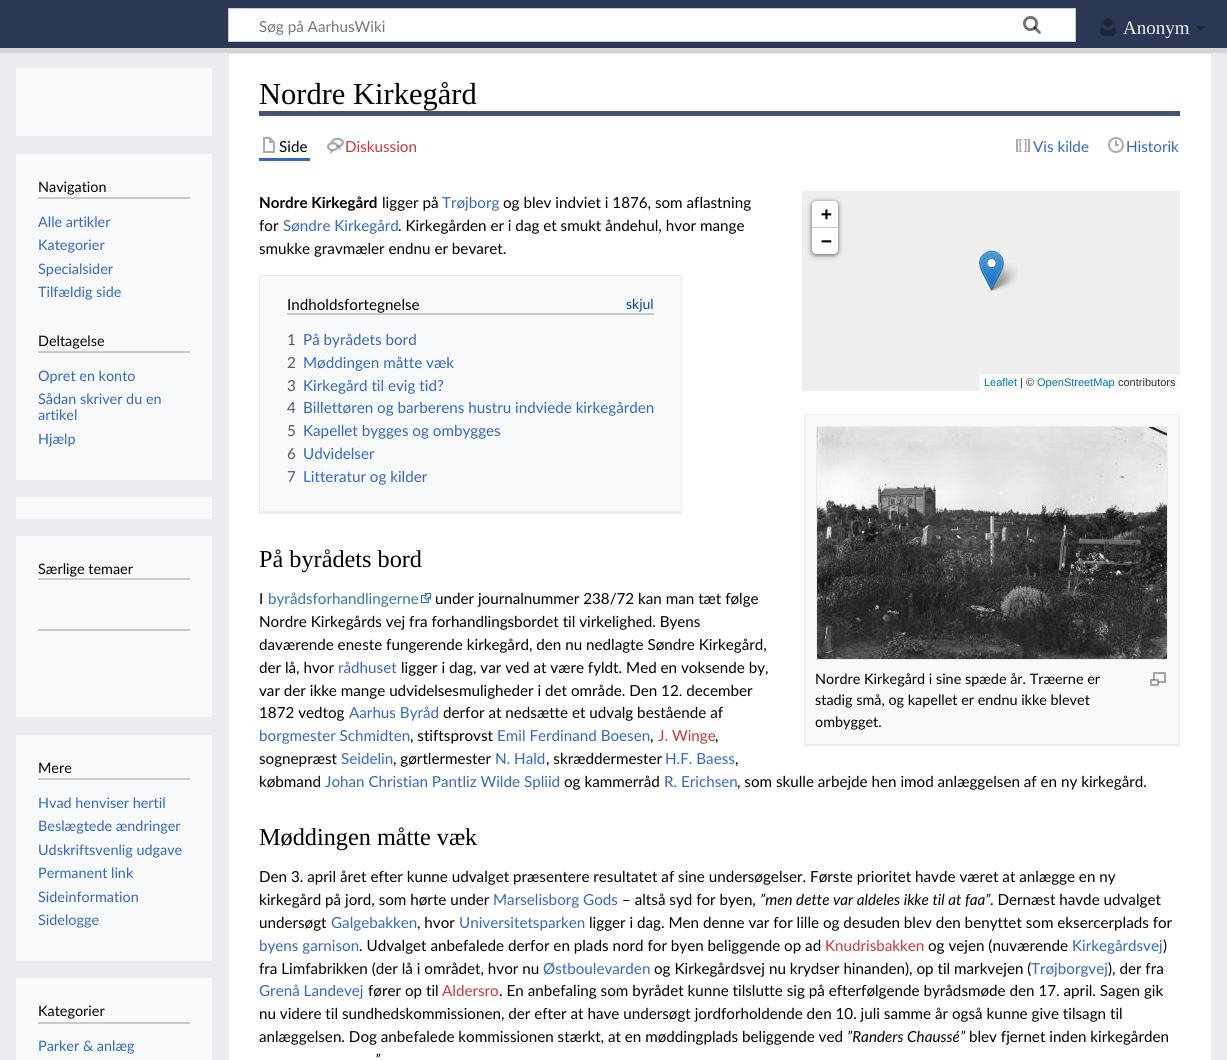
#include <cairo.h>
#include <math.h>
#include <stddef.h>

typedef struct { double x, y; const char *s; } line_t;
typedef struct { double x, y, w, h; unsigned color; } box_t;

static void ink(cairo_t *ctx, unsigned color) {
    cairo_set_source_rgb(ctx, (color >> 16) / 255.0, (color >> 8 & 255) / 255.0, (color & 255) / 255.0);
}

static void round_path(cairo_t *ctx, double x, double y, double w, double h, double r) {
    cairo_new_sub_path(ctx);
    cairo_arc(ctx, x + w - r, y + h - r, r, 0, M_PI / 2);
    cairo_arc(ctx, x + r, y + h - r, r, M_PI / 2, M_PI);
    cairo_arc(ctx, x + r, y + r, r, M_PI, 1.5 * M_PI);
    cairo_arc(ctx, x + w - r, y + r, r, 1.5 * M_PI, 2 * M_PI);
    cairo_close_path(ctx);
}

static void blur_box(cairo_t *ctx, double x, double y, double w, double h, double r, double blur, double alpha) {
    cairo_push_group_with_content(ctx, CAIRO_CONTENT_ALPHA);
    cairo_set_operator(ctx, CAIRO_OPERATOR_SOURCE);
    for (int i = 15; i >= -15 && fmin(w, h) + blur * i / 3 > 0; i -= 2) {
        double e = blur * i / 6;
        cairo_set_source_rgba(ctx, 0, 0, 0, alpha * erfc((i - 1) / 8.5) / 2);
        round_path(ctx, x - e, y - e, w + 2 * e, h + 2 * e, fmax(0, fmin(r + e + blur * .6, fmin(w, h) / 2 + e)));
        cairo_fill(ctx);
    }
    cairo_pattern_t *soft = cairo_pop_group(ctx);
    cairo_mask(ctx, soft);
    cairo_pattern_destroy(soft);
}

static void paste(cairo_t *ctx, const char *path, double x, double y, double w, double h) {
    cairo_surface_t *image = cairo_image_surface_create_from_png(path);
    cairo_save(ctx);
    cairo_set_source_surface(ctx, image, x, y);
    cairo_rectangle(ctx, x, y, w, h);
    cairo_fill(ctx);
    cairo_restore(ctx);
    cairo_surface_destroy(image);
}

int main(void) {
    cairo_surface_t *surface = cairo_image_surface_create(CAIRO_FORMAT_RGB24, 1227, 1060);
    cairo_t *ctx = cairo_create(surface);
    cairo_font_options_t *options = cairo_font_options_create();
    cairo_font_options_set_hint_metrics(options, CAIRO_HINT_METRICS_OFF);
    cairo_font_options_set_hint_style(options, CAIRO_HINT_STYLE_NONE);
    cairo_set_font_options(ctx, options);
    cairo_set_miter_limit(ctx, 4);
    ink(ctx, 0xDDDDDD);
    cairo_paint(ctx);
    ink(ctx, 0xEAECF0);
    cairo_rectangle(ctx, 0, 53, 1227, 1007);
    cairo_fill(ctx);
    ink(ctx, 0xFFFFFF);
    cairo_rectangle(ctx, 229, 54, 982, 1006);
    cairo_fill(ctx);
    ink(ctx, 0x000000);
    blur_box(ctx, -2, 49, 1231, 4, 0, 1.5, 0.07);
    ink(ctx, 0x2A3856);
    cairo_rectangle(ctx, 0, 0, 1227, 48);
    cairo_fill(ctx);
    ink(ctx, 0xFFFFFF);
    cairo_rectangle(ctx, 228.5, 8.5, 847, 33);
    cairo_fill_preserve(ctx);
    ink(ctx, 0xC8CCD1);
    cairo_set_line_width(ctx, 1);
    cairo_stroke(ctx);
    paste(ctx, "media/1.png", 1023, 16, 18, 18);
    cairo_select_font_face(ctx, "Lato", CAIRO_FONT_SLANT_NORMAL, CAIRO_FONT_WEIGHT_NORMAL);
    cairo_set_font_size(ctx, 15.2);
    ink(ctx, 0x757575);
    cairo_move_to(ctx, 259, 32);
    cairo_show_text(ctx, "Søg på AarhusWiki");
    paste(ctx, "media/2.png", 1023, 16, 18, 18);
    paste(ctx, "media/3.png", 1100, 18, 16, 18);
    cairo_select_font_face(ctx, "Liberation Serif", CAIRO_FONT_SLANT_NORMAL, CAIRO_FONT_WEIGHT_NORMAL);
    cairo_set_font_size(ctx, 19);
    ink(ctx, 0xEFEFEF);
    cairo_move_to(ctx, 1123, 34);
    cairo_show_text(ctx, "Anonym");
    ink(ctx, 0x1C263A);
    cairo_new_path(ctx);
    cairo_move_to(ctx, 1205.5, 26);
    cairo_line_to(ctx, 1200.5, 31);
    cairo_line_to(ctx, 1195.5, 26);
    cairo_close_path(ctx);
    cairo_fill(ctx);
    {
        static const box_t items[] = {
            {16, 68, 196, 68, 0xF8F9FA},
            {16, 154, 196, 326, 0xF8F9FA},
            {38, 197, 152, 2, 0xC8CCD1},
        };
        for (size_t i = 0; i < sizeof items / sizeof *items; i++) {
            ink(ctx, items[i].color);
            cairo_rectangle(ctx, items[i].x, items[i].y, items[i].w, items[i].h);
            cairo_fill(ctx);
        }
    }
    cairo_select_font_face(ctx, "Lato", CAIRO_FONT_SLANT_NORMAL, CAIRO_FONT_WEIGHT_NORMAL);
    cairo_set_font_size(ctx, 14.4);
    ink(ctx, 0x000000);
    cairo_move_to(ctx, 38, 192);
    cairo_show_text(ctx, "Navigation");
    ink(ctx, 0x3366CC);
    {
        static const line_t items[] = {
            {38, 227, "Alle artikler"},
            {38, 250, "Kategorier"},
            {38, 274, "Specialsider"},
            {38, 297, "Tilfældig side"},
        };
        for (size_t i = 0; i < sizeof items / sizeof *items; i++) {
            cairo_move_to(ctx, items[i].x, items[i].y);
            cairo_show_text(ctx, items[i].s);
        }
    }
    ink(ctx, 0xC8CCD1);
    cairo_rectangle(ctx, 38, 351, 152, 2);
    cairo_fill(ctx);
    ink(ctx, 0x000000);
    cairo_move_to(ctx, 38, 346);
    cairo_show_text(ctx, "Deltagelse");
    ink(ctx, 0x3366CC);
    {
        static const line_t items[] = {
            {38, 381, "Opret en konto"},
            {38, 404, "Sådan skriver du en"},
            {38, 420, "artikel"},
            {38, 444, "Hjælp"},
        };
        for (size_t i = 0; i < sizeof items / sizeof *items; i++) {
            cairo_move_to(ctx, items[i].x, items[i].y);
            cairo_show_text(ctx, items[i].s);
        }
    }
    {
        static const box_t items[] = {
            {16, 497, 196, 22, 0xF8F9FA},
            {16, 536, 196, 181, 0xF8F9FA},
            {38, 578, 152, 2, 0xC8CCD1},
        };
        for (size_t i = 0; i < sizeof items / sizeof *items; i++) {
            ink(ctx, items[i].color);
            cairo_rectangle(ctx, items[i].x, items[i].y, items[i].w, items[i].h);
            cairo_fill(ctx);
        }
    }
    ink(ctx, 0x000000);
    cairo_move_to(ctx, 38, 574);
    cairo_show_text(ctx, "Særlige temaer");
    ink(ctx, 0xC8CCD1);
    cairo_rectangle(ctx, 38, 629, 152, 2);
    cairo_fill(ctx);
    ink(ctx, 0x455372);
    cairo_rectangle(ctx, 259, 111, 921, 5);
    cairo_fill(ctx);
    cairo_select_font_face(ctx, "Liberation Serif", CAIRO_FONT_SLANT_NORMAL, CAIRO_FONT_WEIGHT_NORMAL);
    cairo_set_font_size(ctx, 30.5);
    ink(ctx, 0x000000);
    cairo_move_to(ctx, 259, 104);
    cairo_show_text(ctx, "Nordre Kirkegård");
    ink(ctx, 0x3366CC);
    cairo_rectangle(ctx, 259, 158, 51, 3);
    cairo_fill(ctx);
    paste(ctx, "media/4.png", 263, 137, 12, 16);
    cairo_select_font_face(ctx, "Lato", CAIRO_FONT_SLANT_NORMAL, CAIRO_FONT_WEIGHT_NORMAL);
    cairo_set_font_size(ctx, 15.2);
    ink(ctx, 0x000000);
    cairo_move_to(ctx, 279, 152);
    cairo_show_text(ctx, "Side");
    paste(ctx, "media/5.png", 327, 137, 17, 17);
    ink(ctx, 0xD73333);
    cairo_move_to(ctx, 345, 152);
    cairo_show_text(ctx, "Diskussion");
    paste(ctx, "media/6.png", 1016, 139, 14, 13);
    ink(ctx, 0x3366CC);
    cairo_move_to(ctx, 1033, 152);
    cairo_show_text(ctx, "Vis kilde");
    paste(ctx, "media/7.png", 1108, 137, 16, 16);
    cairo_move_to(ctx, 1126, 152);
    cairo_show_text(ctx, "Historik");
    cairo_select_font_face(ctx, "Lato", CAIRO_FONT_SLANT_NORMAL, CAIRO_FONT_WEIGHT_BOLD);
    ink(ctx, 0x000000);
    cairo_move_to(ctx, 259, 208);
    cairo_show_text(ctx, "Nordre Kirkegård");
    cairo_select_font_face(ctx, "Lato", CAIRO_FONT_SLANT_NORMAL, CAIRO_FONT_WEIGHT_NORMAL);
    cairo_move_to(ctx, 382, 208);
    cairo_show_text(ctx, "ligger på");
    ink(ctx, 0x3366CC);
    cairo_move_to(ctx, 442, 208);
    cairo_show_text(ctx, "Trøjborg");
    ink(ctx, 0x000000);
    cairo_move_to(ctx, 503, 208);
    cairo_show_text(ctx, "og blev indviet i 1876, som aflastning");
    cairo_move_to(ctx, 259, 231);
    cairo_show_text(ctx, "for");
    ink(ctx, 0x3366CC);
    cairo_move_to(ctx, 283, 231);
    cairo_show_text(ctx, "Søndre Kirkegård");
    ink(ctx, 0x000000);
    cairo_move_to(ctx, 398, 231);
    cairo_show_text(ctx, ". Kirkegården er i dag et smukt åndehul, hvor mange");
    cairo_move_to(ctx, 259, 254);
    cairo_show_text(ctx, "smukke gravmæler endnu er bevaret.");
    ink(ctx, 0xEEEEEE);
    cairo_rectangle(ctx, 802, 191, 378, 200);
    cairo_fill(ctx);
    ink(ctx, 0x000000);
    blur_box(ctx, 812, 202, 26, 53, 4, 2.5, 0.65);
    ink(ctx, 0xFFFFFF);
    cairo_new_path(ctx);
    cairo_move_to(ctx, 816, 201);
    cairo_line_to(ctx, 834, 201);
    cairo_curve_to(ctx, 836, 201, 838, 203, 838, 205);
    cairo_line_to(ctx, 838, 228);
    cairo_line_to(ctx, 812, 228);
    cairo_line_to(ctx, 812, 205);
    cairo_curve_to(ctx, 812, 203, 814, 201, 816, 201);
    cairo_close_path(ctx);
    cairo_fill(ctx);
    ink(ctx, 0xCCCCCC);
    cairo_rectangle(ctx, 812, 227, 26, 1);
    cairo_fill(ctx);
    cairo_select_font_face(ctx, "DejaVu Sans Mono", CAIRO_FONT_SLANT_NORMAL, CAIRO_FONT_WEIGHT_BOLD);
    cairo_set_font_size(ctx, 18);
    ink(ctx, 0x000000);
    cairo_move_to(ctx, 821, 220);
    cairo_show_text(ctx, "+");
    ink(ctx, 0xFFFFFF);
    cairo_new_path(ctx);
    cairo_move_to(ctx, 812, 228);
    cairo_line_to(ctx, 838, 228);
    cairo_line_to(ctx, 838, 250);
    cairo_curve_to(ctx, 838, 252, 836, 254, 834, 254);
    cairo_line_to(ctx, 816, 254);
    cairo_curve_to(ctx, 814, 254, 812, 252, 812, 250);
    cairo_close_path(ctx);
    cairo_fill(ctx);
    ink(ctx, 0x000000);
    cairo_move_to(ctx, 821, 247);
    cairo_show_text(ctx, "−");
    ink(ctx, 0xFAFAFA);
    cairo_rectangle(ctx, 979, 374, 201, 17);
    cairo_fill(ctx);
    cairo_select_font_face(ctx, "Liberation Sans", CAIRO_FONT_SLANT_NORMAL, CAIRO_FONT_WEIGHT_NORMAL);
    cairo_set_font_size(ctx, 11);
    ink(ctx, 0x0078A8);
    cairo_move_to(ctx, 984, 386);
    cairo_show_text(ctx, "Leaflet");
    ink(ctx, 0x333333);
    cairo_move_to(ctx, 1020, 386);
    cairo_show_text(ctx, "| ©");
    ink(ctx, 0x0078A8);
    cairo_move_to(ctx, 1037, 386);
    cairo_show_text(ctx, "OpenStreetMap");
    ink(ctx, 0x333333);
    cairo_move_to(ctx, 1118, 386);
    cairo_show_text(ctx, "contributors");
    paste(ctx, "media/9.png", 989, 263, 29, 28);
    paste(ctx, "media/8.png", 979, 250, 25, 41);
    {
        static const box_t items[] = {
            {260, 276, 421, 235, 0xF8F9FA},
            {259, 275, 423, 1, 0xEAECF0},
            {681, 275, 1, 239, 0xEAECF0},
            {259, 511, 423, 3, 0xEAECF0},
            {259, 275, 1, 239, 0xEAECF0},
            {287, 313, 367, 2, 0xC8CCD1},
        };
        for (size_t i = 0; i < sizeof items / sizeof *items; i++) {
            ink(ctx, items[i].color);
            cairo_rectangle(ctx, items[i].x, items[i].y, items[i].w, items[i].h);
            cairo_fill(ctx);
        }
    }
    cairo_select_font_face(ctx, "Lato", CAIRO_FONT_SLANT_NORMAL, CAIRO_FONT_WEIGHT_NORMAL);
    cairo_set_font_size(ctx, 15.2);
    ink(ctx, 0x000000);
    cairo_move_to(ctx, 287, 310);
    cairo_show_text(ctx, "Indholdsfortegnelse");
    cairo_set_font_size(ctx, 14);
    ink(ctx, 0x0645AD);
    cairo_move_to(ctx, 626, 309);
    cairo_show_text(ctx, "skjul");
    cairo_set_font_size(ctx, 15.2);
    ink(ctx, 0x54595D);
    cairo_move_to(ctx, 287, 345);
    cairo_show_text(ctx, "1");
    ink(ctx, 0x3366CC);
    cairo_move_to(ctx, 303, 345);
    cairo_show_text(ctx, "På byrådets bord");
    ink(ctx, 0x54595D);
    cairo_move_to(ctx, 287, 368);
    cairo_show_text(ctx, "2");
    ink(ctx, 0x3366CC);
    cairo_move_to(ctx, 303, 368);
    cairo_show_text(ctx, "Møddingen måtte væk");
    ink(ctx, 0x54595D);
    cairo_move_to(ctx, 287, 391);
    cairo_show_text(ctx, "3");
    ink(ctx, 0x3366CC);
    cairo_move_to(ctx, 303, 391);
    cairo_show_text(ctx, "Kirkegård til evig tid?");
    ink(ctx, 0x54595D);
    cairo_move_to(ctx, 287, 413);
    cairo_show_text(ctx, "4");
    ink(ctx, 0x3366CC);
    cairo_move_to(ctx, 303, 413);
    cairo_show_text(ctx, "Billettøren og barberens hustru indviede kirkegården");
    ink(ctx, 0x54595D);
    cairo_move_to(ctx, 287, 436);
    cairo_show_text(ctx, "5");
    ink(ctx, 0x3366CC);
    cairo_move_to(ctx, 303, 436);
    cairo_show_text(ctx, "Kapellet bygges og ombygges");
    ink(ctx, 0x54595D);
    cairo_move_to(ctx, 287, 459);
    cairo_show_text(ctx, "6");
    ink(ctx, 0x3366CC);
    cairo_move_to(ctx, 303, 459);
    cairo_show_text(ctx, "Udvidelser");
    ink(ctx, 0x54595D);
    cairo_move_to(ctx, 287, 482);
    cairo_show_text(ctx, "7");
    ink(ctx, 0x3366CC);
    cairo_move_to(ctx, 303, 482);
    cairo_show_text(ctx, "Litteratur og kilder");
    cairo_select_font_face(ctx, "Liberation Serif", CAIRO_FONT_SLANT_NORMAL, CAIRO_FONT_WEIGHT_NORMAL);
    cairo_set_font_size(ctx, 24.25);
    ink(ctx, 0x000000);
    cairo_move_to(ctx, 259, 567);
    cairo_show_text(ctx, "På byrådets bord");
    cairo_select_font_face(ctx, "Lato", CAIRO_FONT_SLANT_NORMAL, CAIRO_FONT_WEIGHT_NORMAL);
    cairo_set_font_size(ctx, 15.2);
    cairo_move_to(ctx, 259, 604);
    cairo_show_text(ctx, "I");
    ink(ctx, 0x3377AA);
    cairo_move_to(ctx, 268, 604);
    cairo_show_text(ctx, "byrådsforhandlingerne");
    paste(ctx, "media/10.png", 421, 593, 10, 10);
    ink(ctx, 0x000000);
    {
        static const line_t items[] = {
            {435, 604, "under journalnummer 238/72 kan man tæt følge"},
            {259, 627, "Nordre Kirkegårds vej fra forhandlingsbordet til virkelighed. Byens"},
            {259, 650, "daværende eneste fungerende kirkegård, den nu nedlagte Søndre Kirkegård,"},
            {259, 673, "der lå, hvor"},
        };
        for (size_t i = 0; i < sizeof items / sizeof *items; i++) {
            cairo_move_to(ctx, items[i].x, items[i].y);
            cairo_show_text(ctx, items[i].s);
        }
    }
    ink(ctx, 0x3366CC);
    cairo_move_to(ctx, 338, 673);
    cairo_show_text(ctx, "rådhuset");
    ink(ctx, 0x000000);
    {
        static const line_t items[] = {
            {401, 673, "ligger i dag, var ved at være fyldt. Med en voksende by,"},
            {259, 696, "var der ikke mange udvidelsesmuligheder i det område. Den 12. december"},
            {259, 718, "1872 vedtog"},
        };
        for (size_t i = 0; i < sizeof items / sizeof *items; i++) {
            cairo_move_to(ctx, items[i].x, items[i].y);
            cairo_show_text(ctx, items[i].s);
        }
    }
    ink(ctx, 0x3366CC);
    cairo_move_to(ctx, 349, 718);
    cairo_show_text(ctx, "Aarhus Byråd");
    ink(ctx, 0x000000);
    cairo_move_to(ctx, 443, 718);
    cairo_show_text(ctx, "derfor at nedsætte et udvalg bestående af");
    ink(ctx, 0x3366CC);
    cairo_move_to(ctx, 259, 741);
    cairo_show_text(ctx, "borgmester Schmidten");
    ink(ctx, 0x000000);
    cairo_move_to(ctx, 410, 741);
    cairo_show_text(ctx, ", stiftsprovst");
    ink(ctx, 0x3366CC);
    cairo_move_to(ctx, 497, 741);
    cairo_show_text(ctx, "Emil Ferdinand Boesen");
    ink(ctx, 0x000000);
    cairo_move_to(ctx, 650, 741);
    cairo_show_text(ctx, ",");
    ink(ctx, 0xD73333);
    cairo_move_to(ctx, 658, 741);
    cairo_show_text(ctx, "J. Winge");
    ink(ctx, 0x000000);
    cairo_move_to(ctx, 715, 741);
    cairo_show_text(ctx, ",");
    cairo_move_to(ctx, 259, 764);
    cairo_show_text(ctx, "sognepræst");
    ink(ctx, 0x3366CC);
    cairo_move_to(ctx, 341, 764);
    cairo_show_text(ctx, "Seidelin");
    ink(ctx, 0x000000);
    cairo_move_to(ctx, 393, 764);
    cairo_show_text(ctx, ", gørtlermester");
    ink(ctx, 0x3366CC);
    cairo_move_to(ctx, 495, 764);
    cairo_show_text(ctx, "N. Hald");
    ink(ctx, 0x000000);
    cairo_move_to(ctx, 546, 764);
    cairo_show_text(ctx, ", skræddermester");
    ink(ctx, 0x3366CC);
    cairo_move_to(ctx, 665, 764);
    cairo_show_text(ctx, "H.F. Baess");
    ink(ctx, 0x000000);
    cairo_move_to(ctx, 735, 764);
    cairo_show_text(ctx, ",");
    cairo_move_to(ctx, 259, 787);
    cairo_show_text(ctx, "købmand");
    ink(ctx, 0x3366CC);
    cairo_move_to(ctx, 325, 787);
    cairo_show_text(ctx, "Johan Christian Pantliz Wilde Spliid");
    ink(ctx, 0x000000);
    cairo_move_to(ctx, 564, 787);
    cairo_show_text(ctx, "og kammerråd");
    ink(ctx, 0x3366CC);
    cairo_move_to(ctx, 664, 787);
    cairo_show_text(ctx, "R. Erichsen");
    ink(ctx, 0x000000);
    cairo_move_to(ctx, 737, 787);
    cairo_show_text(ctx, ", som skulle arbejde hen imod anlæggelsen af en ny kirkegård.");
    {
        static const box_t items[] = {
            {805, 415, 374, 329, 0xF8F9FA},
            {804, 414, 376, 1, 0xEAECF0},
            {804, 744, 376, 2, 0xEAECF0},
            {1179, 414, 1, 332, 0xEAECF0},
            {804, 414, 1, 332, 0xEAECF0},
        };
        for (size_t i = 0; i < sizeof items / sizeof *items; i++) {
            ink(ctx, items[i].color);
            cairo_rectangle(ctx, items[i].x, items[i].y, items[i].w, items[i].h);
            cairo_fill(ctx);
        }
    }
    cairo_rectangle(ctx, 816.5, 426.5, 351, 233);
    cairo_stroke(ctx);
    paste(ctx, "media/11.png", 817, 427, 350, 232);
    paste(ctx, "media/12.png", 1150, 672, 16, 14);
    cairo_set_font_size(ctx, 14.4);
    ink(ctx, 0x000000);
    {
        static const line_t items[] = {
            {815, 684, "Nordre Kirkegård i sine spæde år. Træerne er"},
            {815, 705, "stadig små, og kapellet er endnu ikke blevet"},
            {815, 727, "ombygget."},
        };
        for (size_t i = 0; i < sizeof items / sizeof *items; i++) {
            cairo_move_to(ctx, items[i].x, items[i].y);
            cairo_show_text(ctx, items[i].s);
        }
    }
    cairo_select_font_face(ctx, "Liberation Serif", CAIRO_FONT_SLANT_NORMAL, CAIRO_FONT_WEIGHT_NORMAL);
    cairo_set_font_size(ctx, 24.25);
    cairo_move_to(ctx, 259, 845);
    cairo_show_text(ctx, "Møddingen måtte væk");
    cairo_select_font_face(ctx, "Lato", CAIRO_FONT_SLANT_NORMAL, CAIRO_FONT_WEIGHT_NORMAL);
    cairo_set_font_size(ctx, 15.2);
    cairo_move_to(ctx, 259, 882);
    cairo_show_text(ctx, "Den 3. april året efter kunne udvalget præsentere resultatet af sine undersøgelser. Første prioritet havde været at anlægge en ny");
    cairo_move_to(ctx, 259, 905);
    cairo_show_text(ctx, "kirkegård på jord, som hørte under");
    ink(ctx, 0x3366CC);
    cairo_move_to(ctx, 493, 905);
    cairo_show_text(ctx, "Marselisborg Gods");
    ink(ctx, 0x000000);
    cairo_move_to(ctx, 622, 905);
    cairo_show_text(ctx, "– altså syd for byen,");
    cairo_select_font_face(ctx, "Lato", CAIRO_FONT_SLANT_ITALIC, CAIRO_FONT_WEIGHT_NORMAL);
    cairo_move_to(ctx, 760, 905);
    cairo_show_text(ctx, "”men dette var aldeles ikke til at faa”");
    cairo_select_font_face(ctx, "Lato", CAIRO_FONT_SLANT_NORMAL, CAIRO_FONT_WEIGHT_NORMAL);
    cairo_move_to(ctx, 990, 905);
    cairo_show_text(ctx, ". Dernæst havde udvalget");
    cairo_move_to(ctx, 259, 928);
    cairo_show_text(ctx, "undersøgt");
    ink(ctx, 0x3366CC);
    cairo_move_to(ctx, 331, 928);
    cairo_show_text(ctx, "Galgebakken");
    ink(ctx, 0x000000);
    cairo_move_to(ctx, 417, 928);
    cairo_show_text(ctx, ", hvor");
    ink(ctx, 0x3366CC);
    cairo_move_to(ctx, 459, 928);
    cairo_show_text(ctx, "Universitetsparken");
    ink(ctx, 0x000000);
    cairo_move_to(ctx, 589, 928);
    cairo_show_text(ctx, "ligger i dag. Men denne var for lille og desuden blev den benyttet som eksercerplads for");
    ink(ctx, 0x3366CC);
    cairo_move_to(ctx, 259, 951);
    cairo_show_text(ctx, "byens garnison");
    ink(ctx, 0x000000);
    cairo_move_to(ctx, 359, 951);
    cairo_show_text(ctx, ". Udvalget anbefalede derfor en plads nord for byen beliggende op ad");
    ink(ctx, 0xD73333);
    cairo_move_to(ctx, 825, 951);
    cairo_show_text(ctx, "Knudrisbakken");
    ink(ctx, 0x000000);
    cairo_move_to(ctx, 928, 951);
    cairo_show_text(ctx, "og vejen (nuværende");
    ink(ctx, 0x3366CC);
    cairo_move_to(ctx, 1072, 951);
    cairo_show_text(ctx, "Kirkegårdsvej");
    ink(ctx, 0x000000);
    cairo_move_to(ctx, 1163, 951);
    cairo_show_text(ctx, ")");
    cairo_move_to(ctx, 259, 974);
    cairo_show_text(ctx, "fra Limfabrikken (der lå i området, hvor nu");
    ink(ctx, 0x3366CC);
    cairo_move_to(ctx, 543, 974);
    cairo_show_text(ctx, "Østboulevarden");
    ink(ctx, 0x000000);
    cairo_move_to(ctx, 654, 974);
    cairo_show_text(ctx, "og Kirkegårdsvej nu krydser hinanden), op til markvejen (");
    ink(ctx, 0x3366CC);
    cairo_move_to(ctx, 1031, 974);
    cairo_show_text(ctx, "Trøjborgvej");
    ink(ctx, 0x000000);
    cairo_move_to(ctx, 1108, 974);
    cairo_show_text(ctx, "), der fra");
    ink(ctx, 0x3366CC);
    cairo_move_to(ctx, 259, 996);
    cairo_show_text(ctx, "Grenå Landevej");
    ink(ctx, 0x000000);
    cairo_move_to(ctx, 368, 996);
    cairo_show_text(ctx, "fører op til");
    ink(ctx, 0xD73333);
    cairo_move_to(ctx, 442, 996);
    cairo_show_text(ctx, "Aldersro");
    ink(ctx, 0x000000);
    {
        static const line_t items[] = {
            {499, 996, ". En anbefaling som byrådet kunne tilslutte sig på efterfølgende byrådsmøde den 17. april. Sagen gik"},
            {259, 1019, "nu videre til sundhedskommissionen, der efter at have undersøgt jordforholdende den 10. juli samme år også kunne give tilsagn til"},
            {259, 1042, "anlæggelsen. Dog anbefalede kommissionen stærkt, at en møddingplads beliggende ved"},
        };
        for (size_t i = 0; i < sizeof items / sizeof *items; i++) {
            cairo_move_to(ctx, items[i].x, items[i].y);
            cairo_show_text(ctx, items[i].s);
        }
    }
    cairo_select_font_face(ctx, "Lato", CAIRO_FONT_SLANT_ITALIC, CAIRO_FONT_WEIGHT_NORMAL);
    cairo_move_to(ctx, 847, 1042);
    cairo_show_text(ctx, "”Randers Chaussé”");
    cairo_select_font_face(ctx, "Lato", CAIRO_FONT_SLANT_NORMAL, CAIRO_FONT_WEIGHT_NORMAL);
    cairo_move_to(ctx, 969, 1042);
    cairo_show_text(ctx, "blev fjernet inden kirkegården");
    cairo_select_font_face(ctx, "Lato", CAIRO_FONT_SLANT_ITALIC, CAIRO_FONT_WEIGHT_NORMAL);
    cairo_move_to(ctx, 375, 1065);
    cairo_show_text(ctx, "”");
    ink(ctx, 0xF8F9FA);
    cairo_rectangle(ctx, 16, 735, 196, 226);
    cairo_fill(ctx);
    ink(ctx, 0xC8CCD1);
    cairo_rectangle(ctx, 38, 778, 152, 2);
    cairo_fill(ctx);
    cairo_select_font_face(ctx, "Lato", CAIRO_FONT_SLANT_NORMAL, CAIRO_FONT_WEIGHT_NORMAL);
    cairo_set_font_size(ctx, 14.4);
    ink(ctx, 0x000000);
    cairo_move_to(ctx, 38, 773);
    cairo_show_text(ctx, "Mere");
    ink(ctx, 0x3366CC);
    {
        static const line_t items[] = {
            {38, 808, "Hvad henviser hertil"},
            {38, 831, "Beslægtede ændringer"},
            {38, 855, "Udskriftsvenlig udgave"},
            {38, 878, "Permanent link"},
            {38, 902, "Sideinformation"},
            {38, 925, "Sidelogge"},
        };
        for (size_t i = 0; i < sizeof items / sizeof *items; i++) {
            cairo_move_to(ctx, items[i].x, items[i].y);
            cairo_show_text(ctx, items[i].s);
        }
    }
    ink(ctx, 0xF8F9FA);
    cairo_rectangle(ctx, 16, 978, 196, 82);
    cairo_fill(ctx);
    ink(ctx, 0xC8CCD1);
    cairo_rectangle(ctx, 38, 1022, 152, 2);
    cairo_fill(ctx);
    ink(ctx, 0x000000);
    cairo_move_to(ctx, 38, 1016);
    cairo_show_text(ctx, "Kategorier");
    ink(ctx, 0x3366CC);
    cairo_move_to(ctx, 38, 1051);
    cairo_show_text(ctx, "Parker & anlæg");
    cairo_surface_write_to_png(surface, "image.png");
    cairo_font_options_destroy(options);
    cairo_destroy(ctx);
    cairo_surface_destroy(surface);
    return 0;
}
